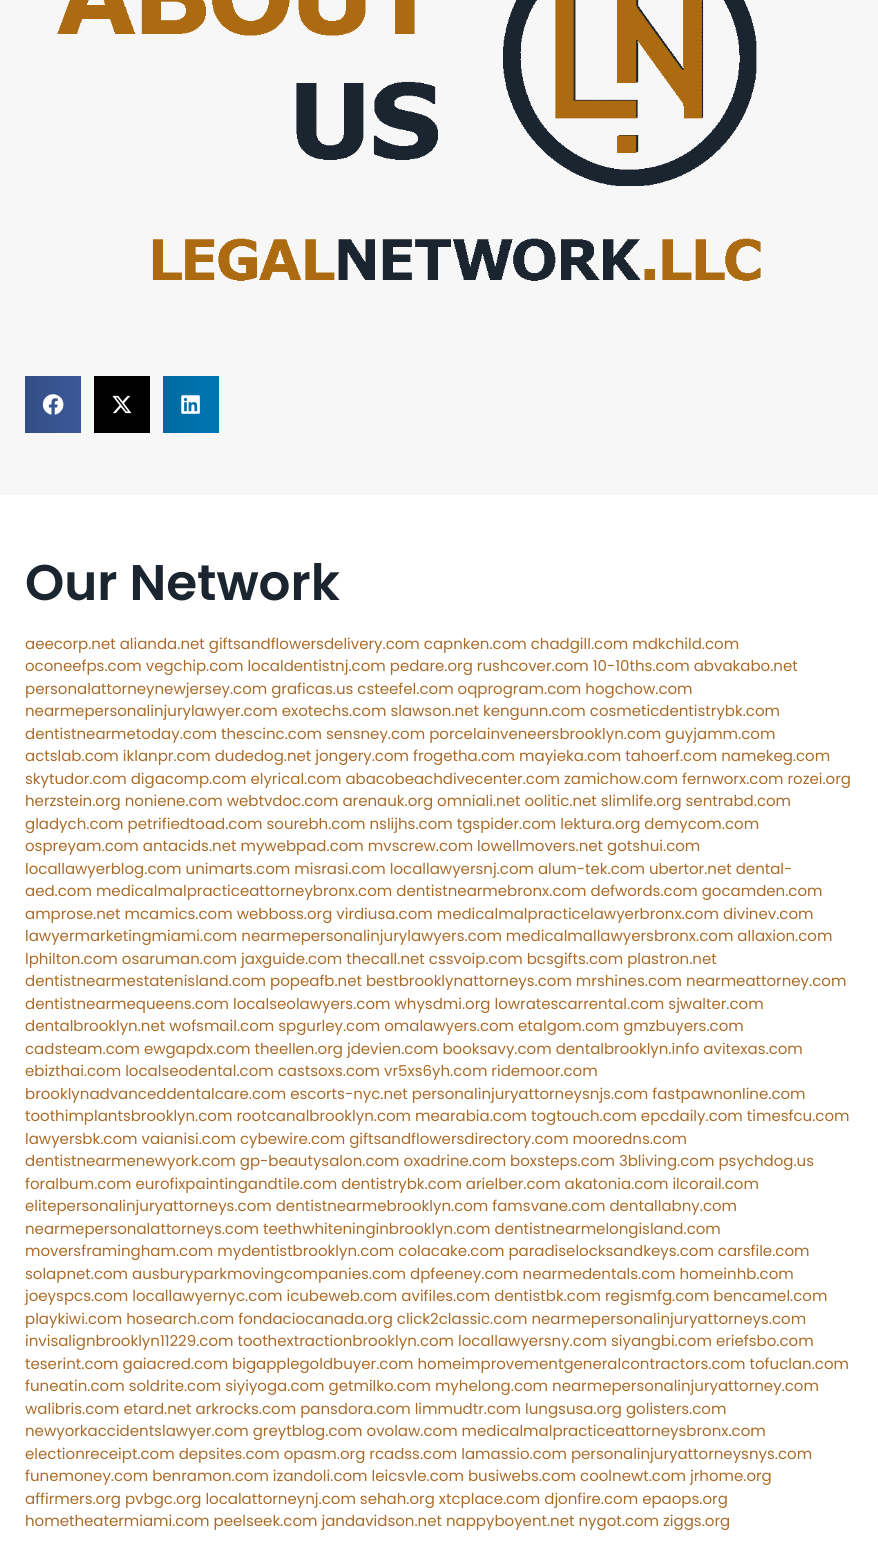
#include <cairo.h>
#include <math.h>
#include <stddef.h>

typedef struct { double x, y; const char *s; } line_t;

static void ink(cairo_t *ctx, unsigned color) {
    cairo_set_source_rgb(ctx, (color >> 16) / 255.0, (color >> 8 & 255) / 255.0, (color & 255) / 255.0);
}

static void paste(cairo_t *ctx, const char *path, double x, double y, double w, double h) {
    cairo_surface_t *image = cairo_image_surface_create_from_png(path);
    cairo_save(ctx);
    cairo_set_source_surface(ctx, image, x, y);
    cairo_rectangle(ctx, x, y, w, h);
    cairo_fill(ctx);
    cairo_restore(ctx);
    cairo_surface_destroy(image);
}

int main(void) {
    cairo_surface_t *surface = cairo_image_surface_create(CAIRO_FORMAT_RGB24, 878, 1544);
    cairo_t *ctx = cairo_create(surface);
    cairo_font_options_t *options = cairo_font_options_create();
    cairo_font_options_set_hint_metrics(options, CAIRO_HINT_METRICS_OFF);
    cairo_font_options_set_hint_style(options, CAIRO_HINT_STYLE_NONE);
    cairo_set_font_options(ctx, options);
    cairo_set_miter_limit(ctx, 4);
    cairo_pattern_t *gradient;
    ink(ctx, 0xFFFFFF);
    cairo_paint(ctx);
    ink(ctx, 0xF7F7F7);
    cairo_rectangle(ctx, 0, 0, 878, 495);
    cairo_fill(ctx);
    paste(ctx, "media/1.png", 57, 0, 704, 281);
    gradient = cairo_pattern_create_linear(25, 404, 81, 404);
    cairo_pattern_add_color_stop_rgba(gradient, 0, 0.204, 0.306, 0.525, 1);
    cairo_pattern_add_color_stop_rgba(gradient, 1, 0.231, 0.349, 0.596, 1);
    cairo_set_source(ctx, gradient);
    cairo_pattern_destroy(gradient);
    cairo_rectangle(ctx, 25, 376, 56, 57);
    cairo_fill(ctx);
    paste(ctx, "media/2.png", 42, 394, 22, 21);
    ink(ctx, 0x000000);
    cairo_rectangle(ctx, 94, 376, 56, 57);
    cairo_fill(ctx);
    paste(ctx, "media/3.png", 112, 395, 20, 19);
    gradient = cairo_pattern_create_linear(163, 404, 219, 404);
    cairo_pattern_add_color_stop_rgba(gradient, 0, 0, 0.412, 0.624, 1);
    cairo_pattern_add_color_stop_rgba(gradient, 1, 0, 0.467, 0.71, 1);
    cairo_set_source(ctx, gradient);
    cairo_pattern_destroy(gradient);
    cairo_rectangle(ctx, 163, 376, 56, 57);
    cairo_fill(ctx);
    paste(ctx, "media/4.png", 181, 395, 19, 19);
    cairo_select_font_face(ctx, "Poppins SemiBold", CAIRO_FONT_SLANT_NORMAL, CAIRO_FONT_WEIGHT_NORMAL);
    cairo_set_font_size(ctx, 50);
    ink(ctx, 0x1B252F);
    cairo_move_to(ctx, 25, 600);
    cairo_show_text(ctx, "Our Network");
    cairo_select_font_face(ctx, "Poppins", CAIRO_FONT_SLANT_NORMAL, CAIRO_FONT_WEIGHT_NORMAL);
    cairo_set_font_size(ctx, 15);
    ink(ctx, 0xAA6B29);
    {
        static const line_t items[] = {
            {25, 649, "aeecorp.net alianda.net giftsandflowersdelivery.com capnken.com chadgill.com mdkchild.com"},
            {25, 671, "oconeefps.com vegchip.com localdentistnj.com pedare.org rushcover.com 10-10ths.com abvakabo.net"},
            {25, 694, "personalattorneynewjersey.com graficas.us csteefel.com oqprogram.com hogchow.com"},
            {25, 716, "nearmepersonalinjurylawyer.com exotechs.com slawson.net kengunn.com cosmeticdentistrybk.com"},
            {25, 739, "dentistnearmetoday.com thescinc.com sensney.com porcelainveneersbrooklyn.com guyjamm.com"},
            {25, 761, "actslab.com iklanpr.com dudedog.net jongery.com frogetha.com mayieka.com tahoerf.com namekeg.com"},
            {25, 784, "skytudor.com digacomp.com elyrical.com abacobeachdivecenter.com zamichow.com fernworx.com rozei.org"},
            {25, 806, "herzstein.org noniene.com webtvdoc.com arenauk.org omniali.net oolitic.net slimlife.org sentrabd.com"},
            {25, 829, "gladych.com petrifiedtoad.com sourebh.com nslijhs.com tgspider.com lektura.org demycom.com"},
            {25, 851, "ospreyam.com antacids.net mywebpad.com mvscrew.com lowellmovers.net gotshui.com"},
            {25, 874, "locallawyerblog.com unimarts.com misrasi.com locallawyersnj.com alum-tek.com ubertor.net dental-"},
            {25, 896, "aed.com medicalmalpracticeattorneybronx.com dentistnearmebronx.com defwords.com gocamden.com"},
            {25, 919, "amprose.net mcamics.com webboss.org virdiusa.com medicalmalpracticelawyerbronx.com divinev.com"},
            {25, 941, "lawyermarketingmiami.com nearmepersonalinjurylawyers.com medicalmallawyersbronx.com allaxion.com"},
            {25, 964, "lphilton.com osaruman.com jaxguide.com thecall.net cssvoip.com bcsgifts.com plastron.net"},
            {25, 986, "dentistnearmestatenisland.com popeafb.net bestbrooklynattorneys.com mrshines.com nearmeattorney.com"},
            {25, 1009, "dentistnearmequeens.com localseolawyers.com whysdmi.org lowratescarrental.com sjwalter.com"},
            {25, 1031, "dentalbrooklyn.net wofsmail.com spgurley.com omalawyers.com etalgom.com gmzbuyers.com"},
            {25, 1054, "cadsteam.com ewgapdx.com theellen.org jdevien.com booksavy.com dentalbrooklyn.info avitexas.com"},
            {25, 1076, "ebizthai.com localseodental.com castsoxs.com vr5xs6yh.com ridemoor.com"},
            {25, 1099, "brooklynadvanceddentalcare.com escorts-nyc.net personalinjuryattorneysnjs.com fastpawnonline.com"},
            {25, 1121, "toothimplantsbrooklyn.com rootcanalbrooklyn.com mearabia.com togtouch.com epcdaily.com timesfcu.com"},
            {25, 1144, "lawyersbk.com vaianisi.com cybewire.com giftsandflowersdirectory.com mooredns.com"},
            {25, 1166, "dentistnearmenewyork.com gp-beautysalon.com oxadrine.com boxsteps.com 3bliving.com psychdog.us"},
            {25, 1189, "foralbum.com eurofixpaintingandtile.com dentistrybk.com arielber.com akatonia.com ilcorail.com"},
            {25, 1211, "elitepersonalinjuryattorneys.com dentistnearmebrooklyn.com famsvane.com dentallabny.com"},
            {25, 1234, "nearmepersonalattorneys.com teethwhiteninginbrooklyn.com dentistnearmelongisland.com"},
            {25, 1256, "moversframingham.com mydentistbrooklyn.com colacake.com paradiselocksandkeys.com carsfile.com"},
            {25, 1279, "solapnet.com ausburyparkmovingcompanies.com dpfeeney.com nearmedentals.com homeinhb.com"},
            {25, 1301, "joeyspcs.com locallawyernyc.com icubeweb.com avifiles.com dentistbk.com regismfg.com bencamel.com"},
            {25, 1324, "playkiwi.com hosearch.com fondaciocanada.org click2classic.com nearmepersonalinjuryattorneys.com"},
            {25, 1346, "invisalignbrooklyn11229.com toothextractionbrooklyn.com locallawyersny.com siyangbi.com eriefsbo.com"},
            {25, 1369, "teserint.com gaiacred.com bigapplegoldbuyer.com homeimprovementgeneralcontractors.com tofuclan.com"},
            {25, 1391, "funeatin.com soldrite.com siyiyoga.com getmilko.com myhelong.com nearmepersonalinjuryattorney.com"},
            {25, 1414, "walibris.com etard.net arkrocks.com pansdora.com limmudtr.com lungsusa.org golisters.com"},
            {25, 1436, "newyorkaccidentslawyer.com greytblog.com ovolaw.com medicalmalpracticeattorneysbronx.com"},
            {25, 1459, "electionreceipt.com depsites.com opasm.org rcadss.com lamassio.com personalinjuryattorneysnys.com"},
            {25, 1481, "funemoney.com benramon.com izandoli.com leicsvle.com busiwebs.com coolnewt.com jrhome.org"},
            {25, 1504, "affirmers.org pvbgc.org localattorneynj.com sehah.org xtcplace.com djonfire.com epaops.org"},
            {25, 1526, "hometheatermiami.com peelseek.com jandavidson.net nappyboyent.net nygot.com ziggs.org"},
        };
        for (size_t i = 0; i < sizeof items / sizeof *items; i++) {
            cairo_move_to(ctx, items[i].x, items[i].y);
            cairo_show_text(ctx, items[i].s);
        }
    }
    cairo_surface_write_to_png(surface, "image.png");
    cairo_font_options_destroy(options);
    cairo_destroy(ctx);
    cairo_surface_destroy(surface);
    return 0;
}
